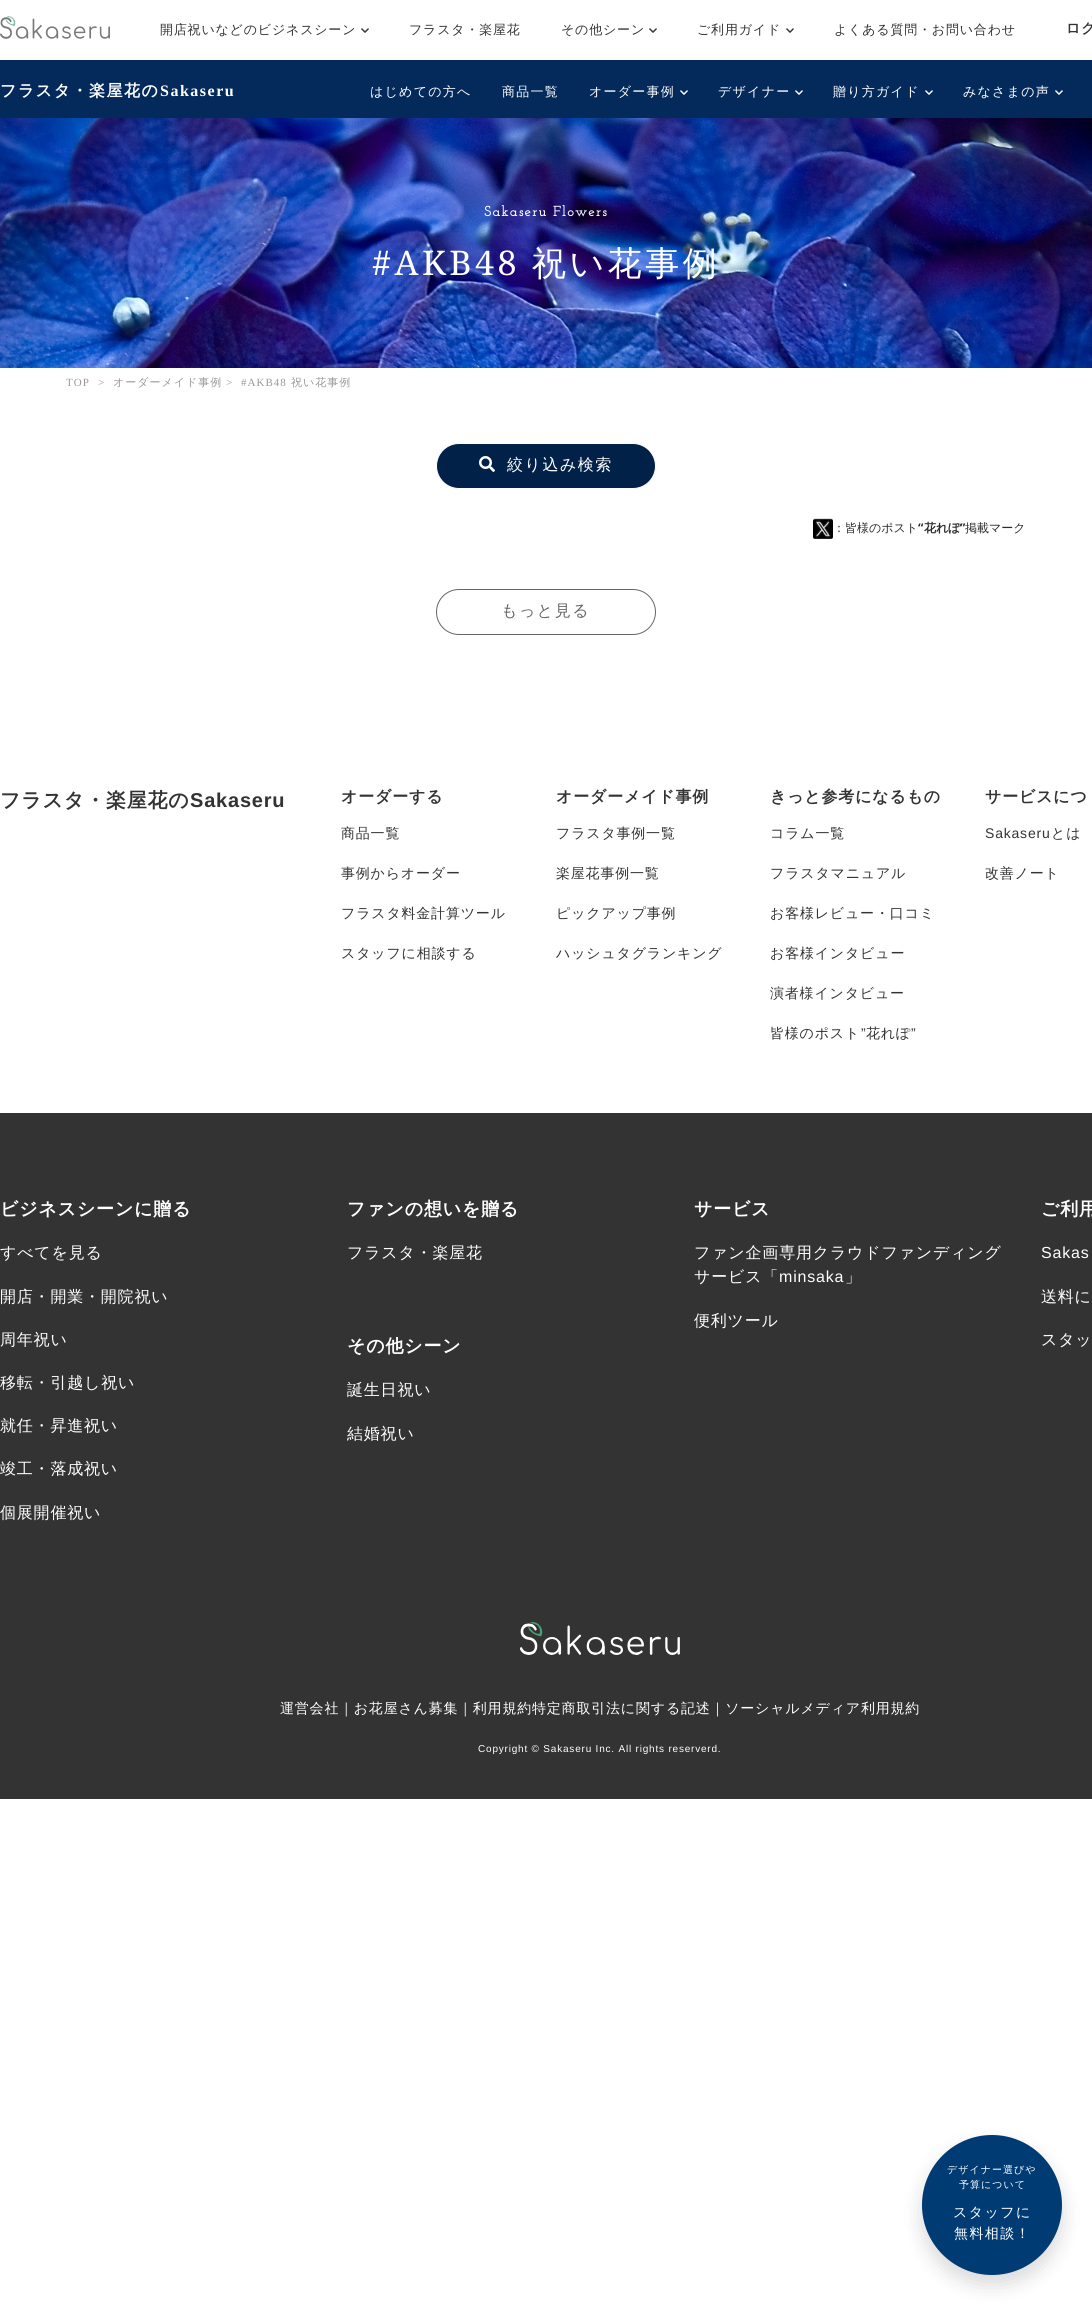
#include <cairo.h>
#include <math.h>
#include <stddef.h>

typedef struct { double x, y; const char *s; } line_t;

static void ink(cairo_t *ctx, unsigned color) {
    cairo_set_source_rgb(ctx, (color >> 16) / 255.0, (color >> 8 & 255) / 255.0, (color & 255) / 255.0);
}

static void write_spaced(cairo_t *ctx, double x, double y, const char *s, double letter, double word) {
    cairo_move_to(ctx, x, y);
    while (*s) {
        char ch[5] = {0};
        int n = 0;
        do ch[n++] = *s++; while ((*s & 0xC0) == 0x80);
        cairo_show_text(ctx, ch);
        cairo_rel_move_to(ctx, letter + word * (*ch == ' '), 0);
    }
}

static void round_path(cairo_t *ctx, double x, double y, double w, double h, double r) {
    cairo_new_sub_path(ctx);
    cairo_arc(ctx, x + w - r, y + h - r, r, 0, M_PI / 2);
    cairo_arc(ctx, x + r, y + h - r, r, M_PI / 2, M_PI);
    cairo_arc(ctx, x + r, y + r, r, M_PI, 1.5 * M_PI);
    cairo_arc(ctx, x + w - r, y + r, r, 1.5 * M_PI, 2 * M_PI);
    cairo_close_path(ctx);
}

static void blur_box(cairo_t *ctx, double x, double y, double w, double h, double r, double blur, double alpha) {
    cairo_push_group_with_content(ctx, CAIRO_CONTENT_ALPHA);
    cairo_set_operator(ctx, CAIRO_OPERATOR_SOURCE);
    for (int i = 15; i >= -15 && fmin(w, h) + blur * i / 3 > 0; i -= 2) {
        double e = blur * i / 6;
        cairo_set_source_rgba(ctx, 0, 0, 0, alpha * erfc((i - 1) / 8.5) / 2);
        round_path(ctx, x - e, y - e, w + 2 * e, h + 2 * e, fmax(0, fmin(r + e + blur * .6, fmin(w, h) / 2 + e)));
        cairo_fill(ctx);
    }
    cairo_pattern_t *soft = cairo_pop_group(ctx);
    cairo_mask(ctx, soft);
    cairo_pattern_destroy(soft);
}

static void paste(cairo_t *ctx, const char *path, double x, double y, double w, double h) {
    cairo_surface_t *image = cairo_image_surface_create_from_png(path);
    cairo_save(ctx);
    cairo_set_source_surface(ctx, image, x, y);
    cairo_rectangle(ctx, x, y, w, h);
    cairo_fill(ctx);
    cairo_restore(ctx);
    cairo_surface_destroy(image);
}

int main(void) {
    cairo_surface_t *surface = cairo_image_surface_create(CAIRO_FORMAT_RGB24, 1092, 2305);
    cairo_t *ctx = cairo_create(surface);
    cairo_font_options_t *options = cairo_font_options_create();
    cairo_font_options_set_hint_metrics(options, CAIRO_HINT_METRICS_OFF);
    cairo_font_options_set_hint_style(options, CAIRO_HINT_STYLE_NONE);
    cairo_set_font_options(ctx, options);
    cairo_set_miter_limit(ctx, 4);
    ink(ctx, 0xFFFFFF);
    cairo_paint(ctx);
    paste(ctx, "media/1.png", 0, 16, 110, 23);
    cairo_select_font_face(ctx, "WenQuanYi Zen Hei Medium", CAIRO_FONT_SLANT_NORMAL, CAIRO_FONT_WEIGHT_NORMAL);
    cairo_set_font_size(ctx, 13);
    ink(ctx, 0x333333);
    write_spaced(ctx, 160, 34, "開店祝いなどのビジネスシーン", 0.8, 0);
    paste(ctx, "media/2.png", 361, 28, 8, 5);
    write_spaced(ctx, 409, 34, "フラスタ・楽屋花", 0.8, 0);
    write_spaced(ctx, 561, 34, "その他シーン", 0.8, 0);
    paste(ctx, "media/2.png", 649, 28, 8, 5);
    write_spaced(ctx, 697, 34, "ご利用ガイド", 0.8, 0);
    paste(ctx, "media/2.png", 786, 28, 8, 5);
    write_spaced(ctx, 834, 34, "よくある質問・お問い合わせ", 0.8, 0);
    cairo_select_font_face(ctx, "WenQuanYi Zen Hei", CAIRO_FONT_SLANT_NORMAL, CAIRO_FONT_WEIGHT_BOLD);
    cairo_set_font_size(ctx, 14);
    write_spaced(ctx, 1066, 33, "ログ", 0.8, 0);
    ink(ctx, 0x042A5C);
    cairo_rectangle(ctx, 0, 60, 1092, 58);
    cairo_fill(ctx);
    cairo_set_font_size(ctx, 16);
    ink(ctx, 0xFFFFFF);
    write_spaced(ctx, 0, 96, "フラスタ・楽屋花の", 1.5, 0);
    cairo_select_font_face(ctx, "Liberation Serif", CAIRO_FONT_SLANT_NORMAL, CAIRO_FONT_WEIGHT_BOLD);
    write_spaced(ctx, 160, 96, "Sakaseru", 1.5, 0);
    cairo_select_font_face(ctx, "WenQuanYi Zen Hei Medium", CAIRO_FONT_SLANT_NORMAL, CAIRO_FONT_WEIGHT_NORMAL);
    cairo_set_font_size(ctx, 13);
    {
        static const line_t items[] = {
            {370, 96, "はじめての方へ"},
            {502, 96, "商品一覧"},
            {589, 96, "オーダー事例"},
        };
        for (size_t i = 0; i < sizeof items / sizeof *items; i++) {
            write_spaced(ctx, items[i].x, items[i].y, items[i].s, 1.25, 0);
        }
    }
    paste(ctx, "media/3.png", 680, 90, 8, 5);
    write_spaced(ctx, 718, 96, "デザイナー", 1.25, 0);
    paste(ctx, "media/3.png", 795, 90, 8, 5);
    write_spaced(ctx, 833, 96, "贈り方ガイド", 1.25, 0);
    paste(ctx, "media/3.png", 925, 90, 8, 5);
    write_spaced(ctx, 963, 96, "みなさまの声", 1.25, 0);
    paste(ctx, "media/3.png", 1055, 90, 8, 5);
    paste(ctx, "media/4.png", 0, 118, 1092, 250);
    cairo_select_font_face(ctx, "Josefin Slab", CAIRO_FONT_SLANT_NORMAL, CAIRO_FONT_WEIGHT_BOLD);
    cairo_set_font_size(ctx, 14);
    write_spaced(ctx, 484, 216, "Sakaseru Flowers", 1.4, 0);
    cairo_select_font_face(ctx, "Noto Serif", CAIRO_FONT_SLANT_NORMAL, CAIRO_FONT_WEIGHT_NORMAL);
    cairo_set_font_size(ctx, 34);
    write_spaced(ctx, 372, 275, "#AKB48", 3.5, 0);
    cairo_select_font_face(ctx, "WenQuanYi Zen Hei Medium", CAIRO_FONT_SLANT_NORMAL, CAIRO_FONT_WEIGHT_NORMAL);
    write_spaced(ctx, 532, 275, "祝い花事例", 3.5, 0);
    cairo_select_font_face(ctx, "Liberation Serif", CAIRO_FONT_SLANT_NORMAL, CAIRO_FONT_WEIGHT_NORMAL);
    cairo_set_font_size(ctx, 11);
    ink(ctx, 0x999999);
    write_spaced(ctx, 66, 386, "TOP", 1, 0);
    write_spaced(ctx, 98, 386, ">", 1, 0);
    cairo_select_font_face(ctx, "WenQuanYi Zen Hei Medium", CAIRO_FONT_SLANT_NORMAL, CAIRO_FONT_WEIGHT_NORMAL);
    write_spaced(ctx, 113, 386, "オーダーメイド事例", 1, 0);
    cairo_select_font_face(ctx, "Liberation Serif", CAIRO_FONT_SLANT_NORMAL, CAIRO_FONT_WEIGHT_NORMAL);
    write_spaced(ctx, 226, 386, ">", 1, 0);
    write_spaced(ctx, 241, 386, "#AKB48", 1, 0);
    cairo_select_font_face(ctx, "WenQuanYi Zen Hei Medium", CAIRO_FONT_SLANT_NORMAL, CAIRO_FONT_WEIGHT_NORMAL);
    write_spaced(ctx, 291, 386, "祝い花事例", 1, 0);
    ink(ctx, 0x022149);
    round_path(ctx, 436.5, 443.5, 219, 45, 22.5);
    cairo_fill_preserve(ctx);
    ink(ctx, 0xFFFFFF);
    cairo_set_line_width(ctx, 1);
    cairo_stroke(ctx);
    paste(ctx, "media/5.png", 479, 456, 16, 16);
    cairo_set_font_size(ctx, 16);
    write_spaced(ctx, 507, 470, "絞り込み検索", 1.5, 0);
    paste(ctx, "media/6.png", 813, 518, 20, 21);
    cairo_set_font_size(ctx, 12);
    ink(ctx, 0x292B2C);
    cairo_move_to(ctx, 833, 532);
    cairo_show_text(ctx, "：皆様のポスト");
    cairo_select_font_face(ctx, "Noto Sans", CAIRO_FONT_SLANT_NORMAL, CAIRO_FONT_WEIGHT_BOLD);
    cairo_move_to(ctx, 918, 532);
    cairo_show_text(ctx, "“");
    cairo_select_font_face(ctx, "WenQuanYi Zen Hei", CAIRO_FONT_SLANT_NORMAL, CAIRO_FONT_WEIGHT_BOLD);
    cairo_move_to(ctx, 924, 532);
    cairo_show_text(ctx, "花れぽ");
    cairo_select_font_face(ctx, "Noto Sans", CAIRO_FONT_SLANT_NORMAL, CAIRO_FONT_WEIGHT_BOLD);
    cairo_move_to(ctx, 960, 532);
    cairo_show_text(ctx, "”");
    cairo_select_font_face(ctx, "WenQuanYi Zen Hei Medium", CAIRO_FONT_SLANT_NORMAL, CAIRO_FONT_WEIGHT_NORMAL);
    cairo_move_to(ctx, 965, 532);
    cairo_show_text(ctx, "掲載マーク");
    round_path(ctx, 436.5, 589.5, 219, 45, 22.5);
    ink(ctx, 0x666666);
    cairo_stroke(ctx);
    cairo_set_font_size(ctx, 16);
    write_spaced(ctx, 501, 616, "もっと見る", 1.5, 0);
    cairo_select_font_face(ctx, "WenQuanYi Zen Hei", CAIRO_FONT_SLANT_NORMAL, CAIRO_FONT_WEIGHT_BOLD);
    cairo_set_font_size(ctx, 20);
    ink(ctx, 0x333333);
    write_spaced(ctx, 0, 807, "フラスタ・楽屋花の", 0.8, 0);
    cairo_select_font_face(ctx, "Liberation Sans", CAIRO_FONT_SLANT_NORMAL, CAIRO_FONT_WEIGHT_BOLD);
    write_spaced(ctx, 190, 807, "Sakaseru", 0.8, 0);
    cairo_select_font_face(ctx, "WenQuanYi Zen Hei", CAIRO_FONT_SLANT_NORMAL, CAIRO_FONT_WEIGHT_BOLD);
    cairo_set_font_size(ctx, 16);
    write_spaced(ctx, 341, 802, "オーダーする", 0.8, 0);
    cairo_select_font_face(ctx, "WenQuanYi Zen Hei Medium", CAIRO_FONT_SLANT_NORMAL, CAIRO_FONT_WEIGHT_NORMAL);
    cairo_set_font_size(ctx, 14);
    {
        static const line_t items[] = {
            {341, 838, "商品一覧"},
            {341, 878, "事例からオーダー"},
            {341, 918, "フラスタ料金計算ツール"},
            {341, 958, "スタッフに相談する"},
        };
        for (size_t i = 0; i < sizeof items / sizeof *items; i++) {
            write_spaced(ctx, items[i].x, items[i].y, items[i].s, 0.8, 0);
        }
    }
    cairo_select_font_face(ctx, "WenQuanYi Zen Hei", CAIRO_FONT_SLANT_NORMAL, CAIRO_FONT_WEIGHT_BOLD);
    cairo_set_font_size(ctx, 16);
    write_spaced(ctx, 556, 802, "オーダーメイド事例", 0.8, 0);
    cairo_select_font_face(ctx, "WenQuanYi Zen Hei Medium", CAIRO_FONT_SLANT_NORMAL, CAIRO_FONT_WEIGHT_NORMAL);
    cairo_set_font_size(ctx, 14);
    {
        static const line_t items[] = {
            {556, 838, "フラスタ事例一覧"},
            {556, 878, "楽屋花事例一覧"},
            {556, 918, "ピックアップ事例"},
            {556, 958, "ハッシュタグランキング"},
        };
        for (size_t i = 0; i < sizeof items / sizeof *items; i++) {
            write_spaced(ctx, items[i].x, items[i].y, items[i].s, 0.8, 0);
        }
    }
    cairo_select_font_face(ctx, "WenQuanYi Zen Hei", CAIRO_FONT_SLANT_NORMAL, CAIRO_FONT_WEIGHT_BOLD);
    cairo_set_font_size(ctx, 16);
    write_spaced(ctx, 770, 802, "きっと参考になるもの", 0.8, 0);
    cairo_select_font_face(ctx, "WenQuanYi Zen Hei Medium", CAIRO_FONT_SLANT_NORMAL, CAIRO_FONT_WEIGHT_NORMAL);
    cairo_set_font_size(ctx, 14);
    {
        static const line_t items[] = {
            {770, 838, "コラム一覧"},
            {770, 878, "フラスタマニュアル"},
            {770, 918, "お客様レビュー・口コミ"},
            {770, 958, "お客様インタビュー"},
            {770, 998, "演者様インタビュー"},
            {770, 1038, "皆様のポスト"},
        };
        for (size_t i = 0; i < sizeof items / sizeof *items; i++) {
            write_spaced(ctx, items[i].x, items[i].y, items[i].s, 0.8, 0);
        }
    }
    cairo_select_font_face(ctx, "Liberation Sans", CAIRO_FONT_SLANT_NORMAL, CAIRO_FONT_WEIGHT_NORMAL);
    write_spaced(ctx, 861, 1038, "”", 0.8, 0);
    cairo_select_font_face(ctx, "WenQuanYi Zen Hei Medium", CAIRO_FONT_SLANT_NORMAL, CAIRO_FONT_WEIGHT_NORMAL);
    write_spaced(ctx, 866, 1038, "花れぽ", 0.8, 0);
    cairo_select_font_face(ctx, "Liberation Sans", CAIRO_FONT_SLANT_NORMAL, CAIRO_FONT_WEIGHT_NORMAL);
    write_spaced(ctx, 911, 1038, "”", 0.8, 0);
    cairo_select_font_face(ctx, "WenQuanYi Zen Hei", CAIRO_FONT_SLANT_NORMAL, CAIRO_FONT_WEIGHT_BOLD);
    cairo_set_font_size(ctx, 16);
    write_spaced(ctx, 985, 802, "サービスにつ", 0.8, 0);
    cairo_select_font_face(ctx, "Liberation Sans", CAIRO_FONT_SLANT_NORMAL, CAIRO_FONT_WEIGHT_NORMAL);
    cairo_set_font_size(ctx, 14);
    write_spaced(ctx, 985, 838, "Sakaseru", 0.8, 0);
    cairo_select_font_face(ctx, "WenQuanYi Zen Hei Medium", CAIRO_FONT_SLANT_NORMAL, CAIRO_FONT_WEIGHT_NORMAL);
    write_spaced(ctx, 1051, 838, "とは", 0.8, 0);
    write_spaced(ctx, 985, 878, "改善ノート", 0.8, 0);
    cairo_rectangle(ctx, 0, 1113, 1092, 686);
    cairo_fill(ctx);
    cairo_select_font_face(ctx, "WenQuanYi Zen Hei", CAIRO_FONT_SLANT_NORMAL, CAIRO_FONT_WEIGHT_BOLD);
    cairo_set_font_size(ctx, 18);
    ink(ctx, 0xFFFFFF);
    write_spaced(ctx, 0, 1215, "ビジネスシーンに贈る", 0.8, 0);
    cairo_select_font_face(ctx, "WenQuanYi Zen Hei Medium", CAIRO_FONT_SLANT_NORMAL, CAIRO_FONT_WEIGHT_NORMAL);
    cairo_set_font_size(ctx, 16);
    {
        static const line_t items[] = {
            {0, 1258, "すべてを見る"},
            {0, 1302, "開店・開業・開院祝い"},
            {0, 1345, "周年祝い"},
            {0, 1388, "移転・引越し祝い"},
            {0, 1431, "就任・昇進祝い"},
            {0, 1474, "竣工・落成祝い"},
            {0, 1518, "個展開催祝い"},
        };
        for (size_t i = 0; i < sizeof items / sizeof *items; i++) {
            write_spaced(ctx, items[i].x, items[i].y, items[i].s, 0.8, 0);
        }
    }
    cairo_select_font_face(ctx, "WenQuanYi Zen Hei", CAIRO_FONT_SLANT_NORMAL, CAIRO_FONT_WEIGHT_BOLD);
    cairo_set_font_size(ctx, 18);
    write_spaced(ctx, 347, 1215, "ファンの想いを贈る", 0.8, 0);
    cairo_select_font_face(ctx, "WenQuanYi Zen Hei Medium", CAIRO_FONT_SLANT_NORMAL, CAIRO_FONT_WEIGHT_NORMAL);
    cairo_set_font_size(ctx, 16);
    write_spaced(ctx, 347, 1258, "フラスタ・楽屋花", 0.8, 0);
    cairo_select_font_face(ctx, "WenQuanYi Zen Hei", CAIRO_FONT_SLANT_NORMAL, CAIRO_FONT_WEIGHT_BOLD);
    cairo_set_font_size(ctx, 18);
    write_spaced(ctx, 347, 1352, "その他シーン", 0.8, 0);
    cairo_select_font_face(ctx, "WenQuanYi Zen Hei Medium", CAIRO_FONT_SLANT_NORMAL, CAIRO_FONT_WEIGHT_NORMAL);
    cairo_set_font_size(ctx, 16);
    write_spaced(ctx, 347, 1395, "誕生日祝い", 0.8, 0);
    write_spaced(ctx, 347, 1439, "結婚祝い", 0.8, 0);
    cairo_select_font_face(ctx, "WenQuanYi Zen Hei", CAIRO_FONT_SLANT_NORMAL, CAIRO_FONT_WEIGHT_BOLD);
    cairo_set_font_size(ctx, 18);
    write_spaced(ctx, 694, 1215, "サービス", 0.8, 0);
    cairo_select_font_face(ctx, "WenQuanYi Zen Hei Medium", CAIRO_FONT_SLANT_NORMAL, CAIRO_FONT_WEIGHT_NORMAL);
    cairo_set_font_size(ctx, 16);
    write_spaced(ctx, 694, 1258, "ファン企画専用クラウドファンディング", 0.8, 0);
    write_spaced(ctx, 694, 1282, "サービス「", 0.8, 0);
    cairo_select_font_face(ctx, "Liberation Sans", CAIRO_FONT_SLANT_NORMAL, CAIRO_FONT_WEIGHT_NORMAL);
    write_spaced(ctx, 779, 1282, "minsaka", 0.8, 0);
    cairo_select_font_face(ctx, "WenQuanYi Zen Hei Medium", CAIRO_FONT_SLANT_NORMAL, CAIRO_FONT_WEIGHT_NORMAL);
    write_spaced(ctx, 845, 1282, "」", 0.8, 0);
    write_spaced(ctx, 694, 1326, "便利ツール", 0.8, 0);
    cairo_select_font_face(ctx, "WenQuanYi Zen Hei", CAIRO_FONT_SLANT_NORMAL, CAIRO_FONT_WEIGHT_BOLD);
    cairo_set_font_size(ctx, 18);
    write_spaced(ctx, 1041, 1215, "ご利用", 0.8, 0);
    cairo_select_font_face(ctx, "Liberation Sans", CAIRO_FONT_SLANT_NORMAL, CAIRO_FONT_WEIGHT_NORMAL);
    cairo_set_font_size(ctx, 16);
    write_spaced(ctx, 1041, 1258, "Sakas", 0.8, 0);
    cairo_select_font_face(ctx, "WenQuanYi Zen Hei Medium", CAIRO_FONT_SLANT_NORMAL, CAIRO_FONT_WEIGHT_NORMAL);
    write_spaced(ctx, 1041, 1302, "送料に", 0.8, 0);
    write_spaced(ctx, 1041, 1345, "スタッ", 0.8, 0);
    paste(ctx, "media/7.png", 520, 1622, 160, 33);
    cairo_set_font_size(ctx, 14);
    write_spaced(ctx, 280, 1713, "運営会社｜お花屋さん募集｜利用規約特定商取引法に関する記述｜ソーシャルメディア利用規約", 0.8, 0);
    cairo_select_font_face(ctx, "Liberation Sans", CAIRO_FONT_SLANT_NORMAL, CAIRO_FONT_WEIGHT_NORMAL);
    cairo_set_font_size(ctx, 10);
    write_spaced(ctx, 478, 1752, "Copyright © Sakaseru Inc. All rights reserverd.", 0.8, 0);
    ink(ctx, 0x000000);
    blur_box(ctx, 922, 2145, 140, 140, 70, 10, 0.15);
    ink(ctx, 0x003C73);
    cairo_arc(ctx, 992, 2205, 70, 0, 2 * M_PI);
    cairo_fill(ctx);
    cairo_select_font_face(ctx, "WenQuanYi Zen Hei Medium", CAIRO_FONT_SLANT_NORMAL, CAIRO_FONT_WEIGHT_NORMAL);
    ink(ctx, 0xFFFFFF);
    write_spaced(ctx, 947, 2173, "デザイナー選びや", 1, 0);
    write_spaced(ctx, 959, 2188, "予算について", 1, 0);
    cairo_set_font_size(ctx, 14);
    write_spaced(ctx, 953, 2217, "スタッフに", 1.4, 0);
    write_spaced(ctx, 954, 2238, "無料相談！", 1.4, 0);
    cairo_surface_write_to_png(surface, "image.png");
    cairo_font_options_destroy(options);
    cairo_destroy(ctx);
    cairo_surface_destroy(surface);
    return 0;
}
